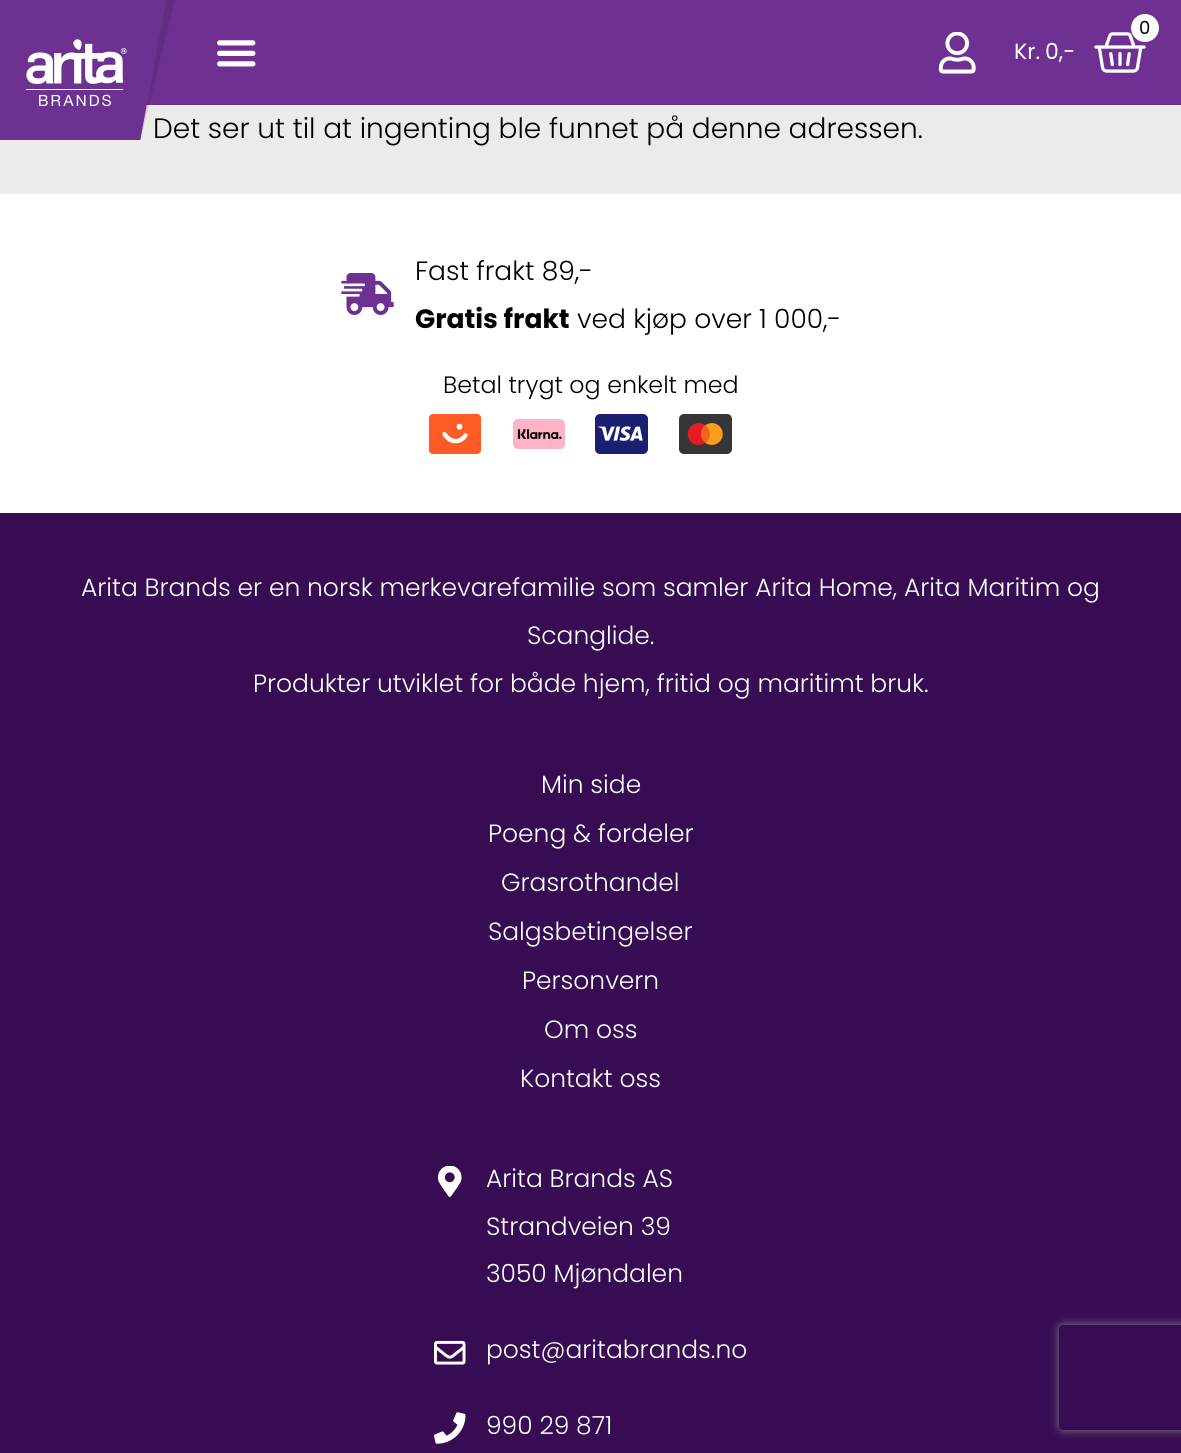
#include <cairo.h>
#include <math.h>
#include <stddef.h>

typedef struct { double x, y; const char *s; } line_t;

static void ink(cairo_t *ctx, unsigned color) {
    cairo_set_source_rgb(ctx, (color >> 16) / 255.0, (color >> 8 & 255) / 255.0, (color & 255) / 255.0);
}

static void round_path(cairo_t *ctx, double x, double y, double w, double h, double r) {
    cairo_new_sub_path(ctx);
    cairo_arc(ctx, x + w - r, y + h - r, r, 0, M_PI / 2);
    cairo_arc(ctx, x + r, y + h - r, r, M_PI / 2, M_PI);
    cairo_arc(ctx, x + r, y + r, r, M_PI, 1.5 * M_PI);
    cairo_arc(ctx, x + w - r, y + r, r, 1.5 * M_PI, 2 * M_PI);
    cairo_close_path(ctx);
}

static void blur_box(cairo_t *ctx, double x, double y, double w, double h, double r, double blur, double alpha) {
    cairo_push_group_with_content(ctx, CAIRO_CONTENT_ALPHA);
    cairo_set_operator(ctx, CAIRO_OPERATOR_SOURCE);
    for (int i = 15; i >= -15 && fmin(w, h) + blur * i / 3 > 0; i -= 2) {
        double e = blur * i / 6;
        cairo_set_source_rgba(ctx, 0, 0, 0, alpha * erfc((i - 1) / 8.5) / 2);
        round_path(ctx, x - e, y - e, w + 2 * e, h + 2 * e, fmax(0, fmin(r + e + blur * .6, fmin(w, h) / 2 + e)));
        cairo_fill(ctx);
    }
    cairo_pattern_t *soft = cairo_pop_group(ctx);
    cairo_mask(ctx, soft);
    cairo_pattern_destroy(soft);
}

static void paste(cairo_t *ctx, const char *path, double x, double y, double w, double h) {
    cairo_surface_t *image = cairo_image_surface_create_from_png(path);
    cairo_save(ctx);
    cairo_set_source_surface(ctx, image, x, y);
    cairo_rectangle(ctx, x, y, w, h);
    cairo_fill(ctx);
    cairo_restore(ctx);
    cairo_surface_destroy(image);
}

int main(void) {
    cairo_surface_t *surface = cairo_image_surface_create(CAIRO_FORMAT_RGB24, 1181, 1453);
    cairo_t *ctx = cairo_create(surface);
    cairo_font_options_t *options = cairo_font_options_create();
    cairo_font_options_set_hint_metrics(options, CAIRO_HINT_METRICS_OFF);
    cairo_font_options_set_hint_style(options, CAIRO_HINT_STYLE_NONE);
    cairo_set_font_options(ctx, options);
    cairo_set_miter_limit(ctx, 4);
    ink(ctx, 0xECEBE7);
    cairo_paint(ctx);
    ink(ctx, 0x6E3192);
    cairo_rectangle(ctx, 146, 0, 1035, 105);
    cairo_fill(ctx);
    cairo_select_font_face(ctx, "Poppins Light", CAIRO_FONT_SLANT_NORMAL, CAIRO_FONT_WEIGHT_NORMAL);
    cairo_set_font_size(ctx, 28);
    ink(ctx, 0x000000);
    cairo_move_to(ctx, 153, 138);
    cairo_show_text(ctx, "Det ser ut til at ingenting ble funnet på denne adressen.");
    paste(ctx, "media/1.png", 0, 0, 175, 140);
    paste(ctx, "media/2.png", 217, 40, 39, 27);
    paste(ctx, "media/3.png", 938, 32, 38, 42);
    paste(ctx, "media/4.png", 1094, 32, 52, 41);
    ink(ctx, 0xFFFFFF);
    cairo_arc(ctx, 1145, 28, 14, 0, 2 * M_PI);
    cairo_fill(ctx);
    cairo_select_font_face(ctx, "Poppins", CAIRO_FONT_SLANT_NORMAL, CAIRO_FONT_WEIGHT_NORMAL);
    cairo_set_font_size(ctx, 18);
    ink(ctx, 0x000000);
    cairo_move_to(ctx, 1139, 34);
    cairo_show_text(ctx, "0");
    cairo_set_font_size(ctx, 22);
    ink(ctx, 0xFFFFFF);
    cairo_move_to(ctx, 1014, 59);
    cairo_show_text(ctx, "Kr.");
    cairo_move_to(ctx, 1045, 59);
    cairo_show_text(ctx, "0,-");
    cairo_rectangle(ctx, 0, 194, 1181, 319);
    cairo_fill(ctx);
    paste(ctx, "media/5.png", 341, 273, 53, 42);
    cairo_select_font_face(ctx, "Poppins Light", CAIRO_FONT_SLANT_NORMAL, CAIRO_FONT_WEIGHT_NORMAL);
    cairo_set_font_size(ctx, 26.5);
    ink(ctx, 0x000000);
    cairo_move_to(ctx, 415, 280);
    cairo_show_text(ctx, "Fast frakt 89,-");
    cairo_select_font_face(ctx, "Poppins", CAIRO_FONT_SLANT_NORMAL, CAIRO_FONT_WEIGHT_BOLD);
    cairo_move_to(ctx, 415, 328);
    cairo_show_text(ctx, "Gratis frakt");
    cairo_select_font_face(ctx, "Poppins Light", CAIRO_FONT_SLANT_NORMAL, CAIRO_FONT_WEIGHT_NORMAL);
    cairo_move_to(ctx, 577, 328);
    cairo_show_text(ctx, "ved kjøp over 1 000,-");
    cairo_set_font_size(ctx, 23.75);
    cairo_move_to(ctx, 443, 393);
    cairo_show_text(ctx, "Betal trygt og enkelt med");
    paste(ctx, "media/6.png", 429, 414, 52, 40);
    paste(ctx, "media/7.png", 513, 419, 52, 30);
    paste(ctx, "media/8.png", 595, 414, 53, 40);
    paste(ctx, "media/9.png", 679, 414, 53, 40);
    ink(ctx, 0x380C52);
    cairo_rectangle(ctx, 0, 513, 1181, 940);
    cairo_fill(ctx);
    cairo_set_font_size(ctx, 24.95);
    ink(ctx, 0xFFFFFF);
    {
        static const line_t items[] = {
            {81, 596, "Arita Brands er en norsk merkevarefamilie som samler Arita Home, Arita Maritim og"},
            {527, 644, "Scanglide."},
            {253, 692, "Produkter utviklet for både hjem, fritid og maritimt bruk."},
            {541, 793, "Min side"},
            {488, 842, "Poeng & fordeler"},
            {501, 891, "Grasrothandel"},
            {488, 940, "Salgsbetingelser"},
            {522, 989, "Personvern"},
            {544, 1038, "Om oss"},
            {520, 1087, "Kontakt oss"},
        };
        for (size_t i = 0; i < sizeof items / sizeof *items; i++) {
            cairo_move_to(ctx, items[i].x, items[i].y);
            cairo_show_text(ctx, items[i].s);
        }
    }
    paste(ctx, "media/10.png", 437, 1166, 25, 31);
    {
        static const line_t items[] = {
            {486, 1187, "Arita Brands AS"},
            {486, 1235, "Strandveien 39"},
            {486, 1282, "3050 Mjøndalen"},
        };
        for (size_t i = 0; i < sizeof items / sizeof *items; i++) {
            cairo_move_to(ctx, items[i].x, items[i].y);
            cairo_show_text(ctx, items[i].s);
        }
    }
    paste(ctx, "media/11.png", 434, 1340, 32, 25);
    cairo_move_to(ctx, 486, 1358);
    cairo_show_text(ctx, "post@aritabrands.no");
    paste(ctx, "media/12.png", 434, 1412, 32, 32);
    cairo_move_to(ctx, 486, 1434);
    cairo_show_text(ctx, "990 29 871");
    cairo_save(ctx);
    cairo_set_fill_rule(ctx, CAIRO_FILL_RULE_EVEN_ODD);
    cairo_new_path(ctx);
    cairo_move_to(ctx, 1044, 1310);
    cairo_line_to(ctx, 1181, 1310);
    cairo_line_to(ctx, 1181, 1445);
    cairo_line_to(ctx, 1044, 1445);
    cairo_close_path(ctx);
    cairo_move_to(ctx, 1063, 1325);
    cairo_line_to(ctx, 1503, 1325);
    cairo_curve_to(ctx, 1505, 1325, 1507, 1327, 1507, 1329);
    cairo_line_to(ctx, 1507, 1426);
    cairo_curve_to(ctx, 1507, 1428, 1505, 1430, 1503, 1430);
    cairo_line_to(ctx, 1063, 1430);
    cairo_curve_to(ctx, 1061, 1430, 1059, 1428, 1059, 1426);
    cairo_line_to(ctx, 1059, 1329);
    cairo_curve_to(ctx, 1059, 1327, 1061, 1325, 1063, 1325);
    cairo_close_path(ctx);
    cairo_clip(ctx);
    ink(ctx, 0x808080);
    blur_box(ctx, 1059, 1325, 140, 105, 4, 4.5, 1);
    cairo_restore(ctx);
    cairo_surface_write_to_png(surface, "image.png");
    cairo_font_options_destroy(options);
    cairo_destroy(ctx);
    cairo_surface_destroy(surface);
    return 0;
}
